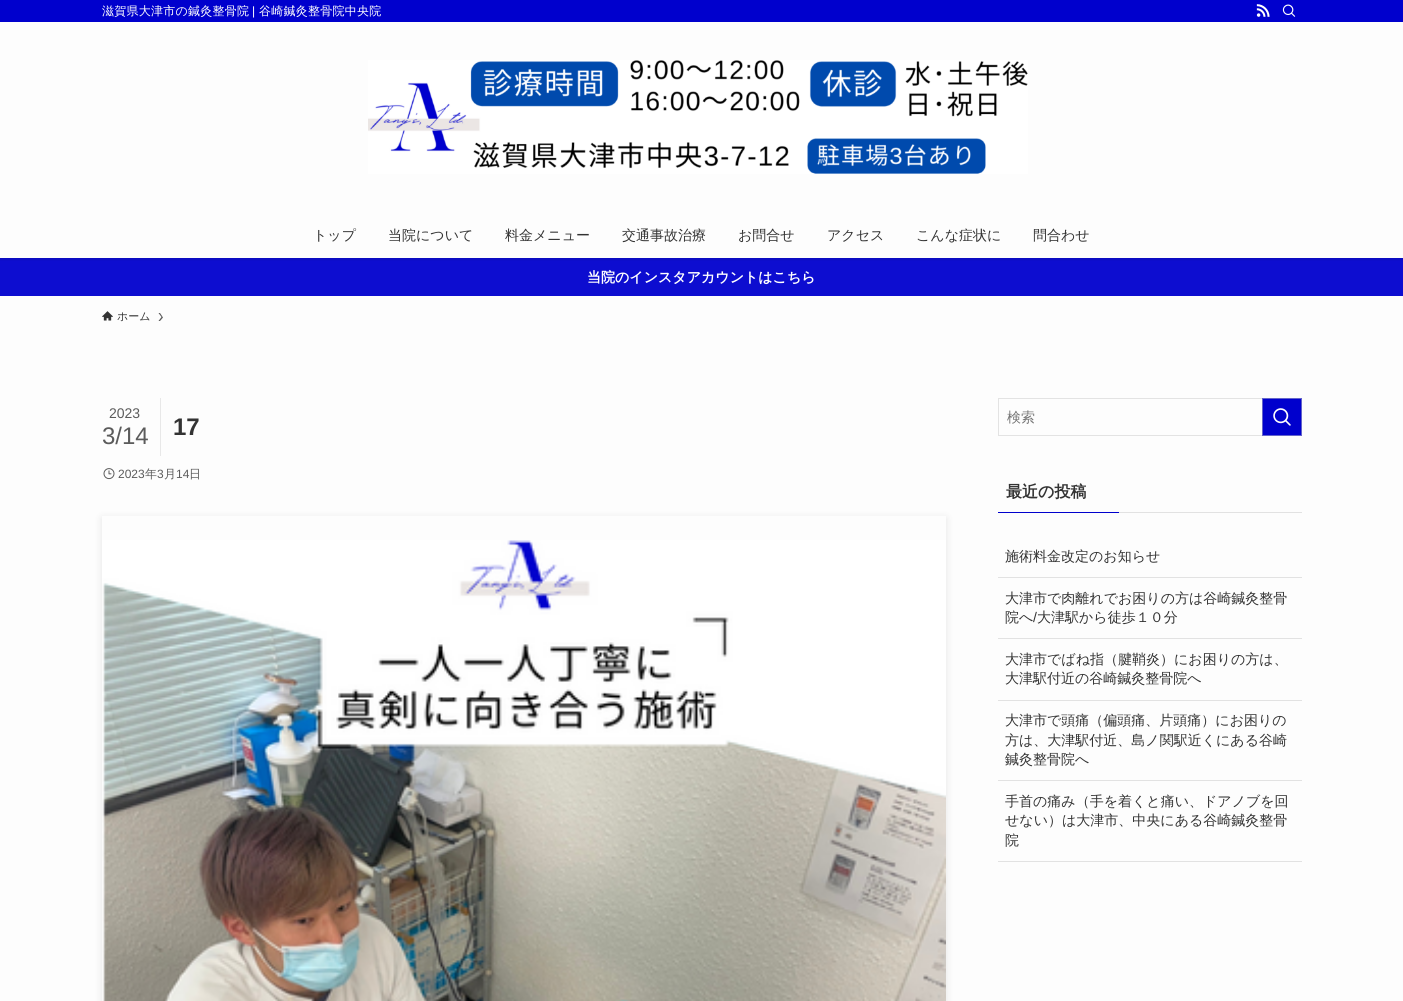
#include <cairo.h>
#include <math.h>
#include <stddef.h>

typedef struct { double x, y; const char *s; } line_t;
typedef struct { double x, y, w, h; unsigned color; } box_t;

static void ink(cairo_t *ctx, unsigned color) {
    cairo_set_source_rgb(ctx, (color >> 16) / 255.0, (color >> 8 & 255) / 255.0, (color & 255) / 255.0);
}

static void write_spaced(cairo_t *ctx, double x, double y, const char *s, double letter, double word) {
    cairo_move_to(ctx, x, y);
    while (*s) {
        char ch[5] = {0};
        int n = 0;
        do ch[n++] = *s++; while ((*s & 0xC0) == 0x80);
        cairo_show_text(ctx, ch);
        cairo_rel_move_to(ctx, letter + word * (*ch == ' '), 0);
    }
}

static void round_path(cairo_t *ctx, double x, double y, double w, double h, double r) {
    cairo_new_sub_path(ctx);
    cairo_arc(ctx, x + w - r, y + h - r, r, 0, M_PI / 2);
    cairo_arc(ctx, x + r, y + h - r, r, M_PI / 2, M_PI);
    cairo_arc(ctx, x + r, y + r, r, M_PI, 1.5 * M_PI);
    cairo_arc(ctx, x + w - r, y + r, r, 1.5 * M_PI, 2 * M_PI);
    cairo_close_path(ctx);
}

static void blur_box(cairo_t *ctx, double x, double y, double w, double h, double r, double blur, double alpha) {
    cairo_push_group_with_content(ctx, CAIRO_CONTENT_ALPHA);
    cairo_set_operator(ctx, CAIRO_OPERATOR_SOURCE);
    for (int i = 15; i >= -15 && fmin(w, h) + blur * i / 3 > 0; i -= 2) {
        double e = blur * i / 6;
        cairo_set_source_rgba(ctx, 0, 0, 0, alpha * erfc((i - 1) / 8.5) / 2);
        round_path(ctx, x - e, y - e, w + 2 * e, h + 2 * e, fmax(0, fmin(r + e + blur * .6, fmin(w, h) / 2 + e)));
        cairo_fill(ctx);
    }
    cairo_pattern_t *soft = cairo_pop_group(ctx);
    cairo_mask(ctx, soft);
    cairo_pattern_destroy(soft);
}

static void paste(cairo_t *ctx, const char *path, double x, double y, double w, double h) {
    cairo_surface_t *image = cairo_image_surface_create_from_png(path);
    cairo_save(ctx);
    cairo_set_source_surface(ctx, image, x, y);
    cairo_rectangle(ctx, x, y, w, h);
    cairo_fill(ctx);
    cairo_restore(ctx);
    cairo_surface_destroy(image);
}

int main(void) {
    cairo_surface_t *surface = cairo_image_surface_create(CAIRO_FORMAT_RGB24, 1403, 1001);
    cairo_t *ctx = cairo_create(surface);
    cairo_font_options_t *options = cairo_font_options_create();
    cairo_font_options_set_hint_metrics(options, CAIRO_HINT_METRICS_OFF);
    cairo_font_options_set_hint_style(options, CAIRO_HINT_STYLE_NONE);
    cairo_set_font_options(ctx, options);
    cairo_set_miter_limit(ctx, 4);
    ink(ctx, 0xFDFDFD);
    cairo_paint(ctx);
    ink(ctx, 0x0D0DD0);
    cairo_rectangle(ctx, 0, 258, 1403, 38);
    cairo_fill(ctx);
    cairo_save(ctx);
    cairo_rectangle(ctx, 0, 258, 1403, 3);
    cairo_clip(ctx);
    ink(ctx, 0x000000);
    blur_box(ctx, 0, 1, 1403, 258, 0, 2, 0.12);
    cairo_restore(ctx);
    ink(ctx, 0x0000CD);
    cairo_rectangle(ctx, 0, 0, 1403, 22);
    cairo_fill(ctx);
    cairo_select_font_face(ctx, "WenQuanYi Zen Hei Medium", CAIRO_FONT_SLANT_NORMAL, CAIRO_FONT_WEIGHT_NORMAL);
    cairo_set_font_size(ctx, 12);
    ink(ctx, 0xFFFFFF);
    write_spaced(ctx, 102, 15, "滋賀県大津市の鍼灸整骨院", 0.25, 0);
    cairo_select_font_face(ctx, "Liberation Sans", CAIRO_FONT_SLANT_NORMAL, CAIRO_FONT_WEIGHT_NORMAL);
    write_spaced(ctx, 252, 15, "|", 0.25, 0);
    cairo_select_font_face(ctx, "WenQuanYi Zen Hei Medium", CAIRO_FONT_SLANT_NORMAL, CAIRO_FONT_WEIGHT_NORMAL);
    write_spaced(ctx, 259, 15, "谷崎鍼灸整骨院中央院", 0.25, 0);
    paste(ctx, "media/1.png", 1256, 4, 14, 13);
    paste(ctx, "media/2.png", 1282, 4, 14, 13);
    paste(ctx, "media/3.png", 368, 60, 660, 114);
    cairo_set_font_size(ctx, 14);
    ink(ctx, 0x333333);
    {
        static const line_t items[] = {
            {313, 240, "トップ"},
            {388, 240, "当院について"},
            {505, 240, "料金メニュー"},
            {622, 240, "交通事故治療"},
            {738, 240, "お問合せ"},
            {827, 240, "アクセス"},
            {916, 240, "こんな症状に"},
            {1033, 240, "問合わせ"},
        };
        for (size_t i = 0; i < sizeof items / sizeof *items; i++) {
            cairo_move_to(ctx, items[i].x, items[i].y);
            cairo_show_text(ctx, items[i].s);
        }
    }
    cairo_select_font_face(ctx, "WenQuanYi Zen Hei", CAIRO_FONT_SLANT_NORMAL, CAIRO_FONT_WEIGHT_BOLD);
    ink(ctx, 0xFFFFFF);
    cairo_move_to(ctx, 587, 282);
    cairo_show_text(ctx, "当院のインスタアカウントはこちら");
    paste(ctx, "media/4.png", 102, 311, 11, 10);
    cairo_select_font_face(ctx, "WenQuanYi Zen Hei Medium", CAIRO_FONT_SLANT_NORMAL, CAIRO_FONT_WEIGHT_NORMAL);
    cairo_set_font_size(ctx, 11);
    ink(ctx, 0x333333);
    cairo_move_to(ctx, 117, 320);
    cairo_show_text(ctx, "ホーム");
    ink(ctx, 0x5B5B5B);
    cairo_new_path(ctx);
    cairo_move_to(ctx, 160, 313);
    cairo_line_to(ctx, 158.5, 313);
    cairo_line_to(ctx, 161.5, 317);
    cairo_line_to(ctx, 158.5, 321);
    cairo_line_to(ctx, 160, 321);
    cairo_line_to(ctx, 163, 317.5);
    cairo_close_path(ctx);
    cairo_fill(ctx);
    ink(ctx, 0xE8E8E8);
    cairo_rectangle(ctx, 160, 398, 1, 58);
    cairo_fill(ctx);
    cairo_select_font_face(ctx, "Liberation Sans", CAIRO_FONT_SLANT_NORMAL, CAIRO_FONT_WEIGHT_NORMAL);
    cairo_set_font_size(ctx, 14);
    ink(ctx, 0x5B5B5B);
    cairo_move_to(ctx, 109, 418);
    cairo_show_text(ctx, "2023");
    cairo_set_font_size(ctx, 24);
    cairo_move_to(ctx, 102, 444);
    cairo_show_text(ctx, "3/14");
    cairo_select_font_face(ctx, "Liberation Sans", CAIRO_FONT_SLANT_NORMAL, CAIRO_FONT_WEIGHT_BOLD);
    ink(ctx, 0x333333);
    cairo_move_to(ctx, 173, 435);
    cairo_show_text(ctx, "17");
    paste(ctx, "media/5.png", 103, 468, 12, 12);
    cairo_select_font_face(ctx, "Liberation Sans", CAIRO_FONT_SLANT_NORMAL, CAIRO_FONT_WEIGHT_NORMAL);
    cairo_set_font_size(ctx, 12);
    ink(ctx, 0x5B5B5B);
    cairo_move_to(ctx, 118, 478);
    cairo_show_text(ctx, "2023");
    cairo_select_font_face(ctx, "WenQuanYi Zen Hei Medium", CAIRO_FONT_SLANT_NORMAL, CAIRO_FONT_WEIGHT_NORMAL);
    cairo_move_to(ctx, 145, 478);
    cairo_show_text(ctx, "年");
    cairo_select_font_face(ctx, "Liberation Sans", CAIRO_FONT_SLANT_NORMAL, CAIRO_FONT_WEIGHT_NORMAL);
    cairo_move_to(ctx, 157, 478);
    cairo_show_text(ctx, "3");
    cairo_select_font_face(ctx, "WenQuanYi Zen Hei Medium", CAIRO_FONT_SLANT_NORMAL, CAIRO_FONT_WEIGHT_NORMAL);
    cairo_move_to(ctx, 164, 478);
    cairo_show_text(ctx, "月");
    cairo_select_font_face(ctx, "Liberation Sans", CAIRO_FONT_SLANT_NORMAL, CAIRO_FONT_WEIGHT_NORMAL);
    cairo_move_to(ctx, 176, 478);
    cairo_show_text(ctx, "14");
    cairo_select_font_face(ctx, "WenQuanYi Zen Hei Medium", CAIRO_FONT_SLANT_NORMAL, CAIRO_FONT_WEIGHT_NORMAL);
    cairo_move_to(ctx, 189, 478);
    cairo_show_text(ctx, "日");
    cairo_save(ctx);
    cairo_set_fill_rule(ctx, CAIRO_FILL_RULE_EVEN_ODD);
    cairo_new_path(ctx);
    cairo_move_to(ctx, 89, 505);
    cairo_line_to(ctx, 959, 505);
    cairo_line_to(ctx, 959, 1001);
    cairo_line_to(ctx, 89, 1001);
    cairo_close_path(ctx);
    cairo_move_to(ctx, 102, 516);
    cairo_line_to(ctx, 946, 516);
    cairo_line_to(ctx, 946, 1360);
    cairo_line_to(ctx, 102, 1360);
    cairo_close_path(ctx);
    cairo_clip(ctx);
    ink(ctx, 0x000000);
    blur_box(ctx, 102, 518, 844, 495, 0, 4, 0.1);
    cairo_restore(ctx);
    paste(ctx, "media/6.png", 102, 540, 844, 461);
    cairo_rectangle(ctx, 998.5, 398.5, 303, 37);
    ink(ctx, 0xE3E3E3);
    cairo_set_line_width(ctx, 1);
    cairo_stroke(ctx);
    cairo_set_font_size(ctx, 14);
    ink(ctx, 0x757575);
    cairo_move_to(ctx, 1007, 422);
    cairo_show_text(ctx, "検索");
    ink(ctx, 0x0000CD);
    cairo_rectangle(ctx, 1262.5, 398.5, 39, 37);
    cairo_fill_preserve(ctx);
    ink(ctx, 0x6464CA);
    cairo_stroke(ctx);
    paste(ctx, "media/7.png", 1273, 408, 18, 18);
    cairo_select_font_face(ctx, "WenQuanYi Zen Hei", CAIRO_FONT_SLANT_NORMAL, CAIRO_FONT_WEIGHT_BOLD);
    cairo_set_font_size(ctx, 16);
    ink(ctx, 0x333333);
    cairo_move_to(ctx, 1006, 497);
    cairo_show_text(ctx, "最近の投稿");
    {
        static const box_t items[] = {
            {998, 512, 121, 1, 0x0000CD},
            {1119, 512, 183, 1, 0xE2E2E2},
            {998, 577, 304, 1, 0xE2E2E2},
        };
        for (size_t i = 0; i < sizeof items / sizeof *items; i++) {
            ink(ctx, items[i].color);
            cairo_rectangle(ctx, items[i].x, items[i].y, items[i].w, items[i].h);
            cairo_fill(ctx);
        }
    }
    cairo_select_font_face(ctx, "WenQuanYi Zen Hei Medium", CAIRO_FONT_SLANT_NORMAL, CAIRO_FONT_WEIGHT_NORMAL);
    cairo_set_font_size(ctx, 14);
    ink(ctx, 0x333333);
    cairo_move_to(ctx, 1005, 561);
    cairo_show_text(ctx, "施術料金改定のお知らせ");
    ink(ctx, 0xE2E2E2);
    cairo_rectangle(ctx, 998, 638, 304, 1);
    cairo_fill(ctx);
    ink(ctx, 0x333333);
    cairo_move_to(ctx, 1005, 603);
    cairo_show_text(ctx, "大津市で肉離れでお困りの方は谷崎鍼灸整骨");
    cairo_move_to(ctx, 1005, 622);
    cairo_show_text(ctx, "院へ");
    cairo_select_font_face(ctx, "Liberation Sans", CAIRO_FONT_SLANT_NORMAL, CAIRO_FONT_WEIGHT_NORMAL);
    cairo_move_to(ctx, 1033, 622);
    cairo_show_text(ctx, "/");
    cairo_select_font_face(ctx, "WenQuanYi Zen Hei Medium", CAIRO_FONT_SLANT_NORMAL, CAIRO_FONT_WEIGHT_NORMAL);
    cairo_move_to(ctx, 1037, 622);
    cairo_show_text(ctx, "大津駅から徒歩１０分");
    ink(ctx, 0xE2E2E2);
    cairo_rectangle(ctx, 998, 700, 304, 1);
    cairo_fill(ctx);
    ink(ctx, 0x333333);
    cairo_move_to(ctx, 1005, 664);
    cairo_show_text(ctx, "大津市でばね指（腱鞘炎）にお困りの方は、");
    cairo_move_to(ctx, 1005, 683);
    cairo_show_text(ctx, "大津駅付近の谷崎鍼灸整骨院へ");
    ink(ctx, 0xE2E2E2);
    cairo_rectangle(ctx, 998, 780, 304, 1);
    cairo_fill(ctx);
    ink(ctx, 0x333333);
    {
        static const line_t items[] = {
            {1005, 725, "大津市で頭痛（偏頭痛、片頭痛）にお困りの"},
            {1005, 745, "方は、大津駅付近、島ノ関駅近くにある谷崎"},
            {1005, 764, "鍼灸整骨院へ"},
        };
        for (size_t i = 0; i < sizeof items / sizeof *items; i++) {
            cairo_move_to(ctx, items[i].x, items[i].y);
            cairo_show_text(ctx, items[i].s);
        }
    }
    ink(ctx, 0xE2E2E2);
    cairo_rectangle(ctx, 998, 861, 304, 1);
    cairo_fill(ctx);
    ink(ctx, 0x333333);
    {
        static const line_t items[] = {
            {1005, 806, "手首の痛み（手を着くと痛い、ドアノブを回"},
            {1005, 825, "せない）は大津市、中央にある谷崎鍼灸整骨"},
            {1005, 845, "院"},
        };
        for (size_t i = 0; i < sizeof items / sizeof *items; i++) {
            cairo_move_to(ctx, items[i].x, items[i].y);
            cairo_show_text(ctx, items[i].s);
        }
    }
    cairo_surface_write_to_png(surface, "image.png");
    cairo_font_options_destroy(options);
    cairo_destroy(ctx);
    cairo_surface_destroy(surface);
    return 0;
}
